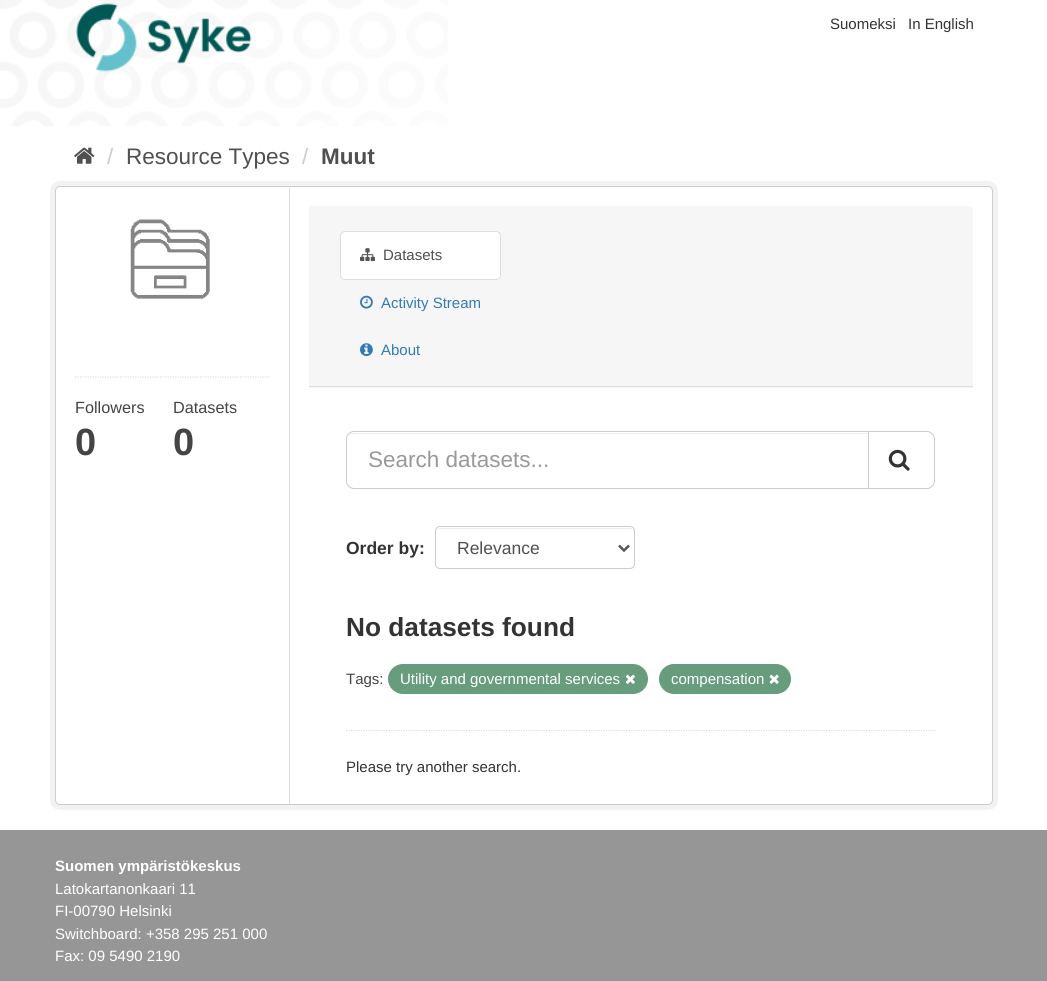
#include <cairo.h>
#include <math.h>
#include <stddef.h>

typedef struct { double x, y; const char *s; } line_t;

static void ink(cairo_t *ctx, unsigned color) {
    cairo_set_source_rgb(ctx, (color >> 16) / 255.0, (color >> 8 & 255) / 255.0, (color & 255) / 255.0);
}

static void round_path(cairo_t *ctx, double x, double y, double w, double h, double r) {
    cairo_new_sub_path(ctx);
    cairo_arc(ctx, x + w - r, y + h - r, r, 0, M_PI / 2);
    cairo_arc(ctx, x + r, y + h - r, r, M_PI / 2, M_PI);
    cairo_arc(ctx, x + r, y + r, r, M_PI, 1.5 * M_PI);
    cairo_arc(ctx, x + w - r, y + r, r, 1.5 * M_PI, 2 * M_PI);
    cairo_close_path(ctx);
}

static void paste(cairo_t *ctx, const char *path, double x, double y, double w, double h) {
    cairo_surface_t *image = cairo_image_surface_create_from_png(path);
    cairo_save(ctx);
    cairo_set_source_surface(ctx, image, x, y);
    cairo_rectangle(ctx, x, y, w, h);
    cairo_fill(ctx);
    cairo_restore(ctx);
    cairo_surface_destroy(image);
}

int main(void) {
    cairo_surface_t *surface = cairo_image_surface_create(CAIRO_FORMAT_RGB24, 1047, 981);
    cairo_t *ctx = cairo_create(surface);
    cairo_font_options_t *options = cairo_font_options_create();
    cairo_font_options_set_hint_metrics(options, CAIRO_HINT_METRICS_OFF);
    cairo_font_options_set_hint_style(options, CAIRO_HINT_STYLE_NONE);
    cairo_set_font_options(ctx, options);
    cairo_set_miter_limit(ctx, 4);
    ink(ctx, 0x969696);
    cairo_paint(ctx);
    ink(ctx, 0xFFFFFF);
    cairo_rectangle(ctx, 448, 0, 599, 126);
    cairo_fill(ctx);
    paste(ctx, "media/1.png", 0, 0, 448, 126);
    paste(ctx, "media/2.png", 76, 3, 176, 69);
    cairo_select_font_face(ctx, "Liberation Sans", CAIRO_FONT_SLANT_NORMAL, CAIRO_FONT_WEIGHT_NORMAL);
    cairo_set_font_size(ctx, 15);
    ink(ctx, 0x333333);
    cairo_move_to(ctx, 830, 29);
    cairo_show_text(ctx, "Suomeksi");
    cairo_move_to(ctx, 908, 29);
    cairo_show_text(ctx, "In English");
    ink(ctx, 0xFFFFFF);
    cairo_rectangle(ctx, 0, 126, 1047, 704);
    cairo_fill(ctx);
    paste(ctx, "media/3.png", 74, 147, 21, 17);
    cairo_set_font_size(ctx, 22.5);
    ink(ctx, 0xCCCCCC);
    cairo_move_to(ctx, 107, 164);
    cairo_show_text(ctx, "/");
    ink(ctx, 0x505050);
    cairo_move_to(ctx, 126, 164);
    cairo_show_text(ctx, "Resource Types");
    ink(ctx, 0xCCCCCC);
    cairo_move_to(ctx, 302, 164);
    cairo_show_text(ctx, "/");
    cairo_select_font_face(ctx, "Liberation Sans", CAIRO_FONT_SLANT_NORMAL, CAIRO_FONT_WEIGHT_BOLD);
    ink(ctx, 0x505050);
    cairo_move_to(ctx, 321, 164);
    cairo_show_text(ctx, "Muut");
    round_path(ctx, 52.5, 183.5, 943, 624, 7.5);
    ink(ctx, 0xF2F2F2);
    cairo_set_line_width(ctx, 5);
    cairo_stroke(ctx);
    ink(ctx, 0xFFFFFF);
    round_path(ctx, 55.5, 186.5, 937, 618, 4.5);
    cairo_fill_preserve(ctx);
    ink(ctx, 0xCCCCCC);
    cairo_set_line_width(ctx, 1);
    cairo_stroke(ctx);
    paste(ctx, "media/4.png", 130, 219, 80, 80);
    cairo_new_path(ctx);
    cairo_move_to(ctx, 75, 377);
    cairo_line_to(ctx, 270, 377);
    ink(ctx, 0xDDDDDD);
    cairo_set_line_width(ctx, 1.2);
    cairo_set_dash(ctx, (double[]){1.25, 1.25}, 2, 0);
    cairo_stroke(ctx);
    cairo_select_font_face(ctx, "Liberation Sans", CAIRO_FONT_SLANT_NORMAL, CAIRO_FONT_WEIGHT_NORMAL);
    cairo_set_font_size(ctx, 16.25);
    ink(ctx, 0x444444);
    cairo_move_to(ctx, 75, 413);
    cairo_show_text(ctx, "Followers");
    cairo_select_font_face(ctx, "Liberation Sans", CAIRO_FONT_SLANT_NORMAL, CAIRO_FONT_WEIGHT_BOLD);
    cairo_set_font_size(ctx, 38);
    cairo_move_to(ctx, 75, 455);
    cairo_show_text(ctx, "0");
    cairo_select_font_face(ctx, "Liberation Sans", CAIRO_FONT_SLANT_NORMAL, CAIRO_FONT_WEIGHT_NORMAL);
    cairo_set_font_size(ctx, 16.25);
    cairo_move_to(ctx, 173, 413);
    cairo_show_text(ctx, "Datasets");
    cairo_select_font_face(ctx, "Liberation Sans", CAIRO_FONT_SLANT_NORMAL, CAIRO_FONT_WEIGHT_BOLD);
    cairo_set_font_size(ctx, 38);
    cairo_move_to(ctx, 173, 455);
    cairo_show_text(ctx, "0");
    ink(ctx, 0xDDDDDD);
    cairo_rectangle(ctx, 289, 188, 1, 616);
    cairo_fill(ctx);
    ink(ctx, 0xF6F6F6);
    cairo_new_path(ctx);
    cairo_move_to(ctx, 309, 206);
    cairo_line_to(ctx, 969, 206);
    cairo_curve_to(ctx, 971, 206, 973, 208, 973, 210);
    cairo_line_to(ctx, 973, 388);
    cairo_line_to(ctx, 309, 388);
    cairo_close_path(ctx);
    cairo_fill(ctx);
    ink(ctx, 0xDDDDDD);
    cairo_rectangle(ctx, 309, 386, 664, 1);
    cairo_fill(ctx);
    ink(ctx, 0xFFFFFF);
    round_path(ctx, 340.5, 231.5, 160, 48, 4.5);
    cairo_fill_preserve(ctx);
    ink(ctx, 0xDDDDDD);
    cairo_set_line_width(ctx, 1);
    cairo_set_dash(ctx, NULL, 0, 0);
    cairo_stroke(ctx);
    paste(ctx, "media/5.png", 360, 248, 15, 14);
    cairo_select_font_face(ctx, "Liberation Sans", CAIRO_FONT_SLANT_NORMAL, CAIRO_FONT_WEIGHT_NORMAL);
    cairo_set_font_size(ctx, 15);
    ink(ctx, 0x505050);
    cairo_move_to(ctx, 383, 260);
    cairo_show_text(ctx, "Datasets");
    paste(ctx, "media/6.png", 360, 295, 13, 14);
    ink(ctx, 0x337AB7);
    cairo_move_to(ctx, 381, 308);
    cairo_show_text(ctx, "Activity Stream");
    paste(ctx, "media/7.png", 360, 343, 13, 14);
    cairo_move_to(ctx, 381, 355);
    cairo_show_text(ctx, "About");
    cairo_new_path(ctx);
    cairo_move_to(ctx, 346, 730.5);
    cairo_line_to(ctx, 935, 730.5);
    ink(ctx, 0xDDDDDD);
    cairo_set_line_width(ctx, 1.2);
    cairo_set_dash(ctx, (double[]){1.25, 1.25}, 2, 0);
    cairo_stroke(ctx);
    ink(ctx, 0xECECEC);
    cairo_new_path(ctx);
    cairo_move_to(ctx, 354, 434);
    cairo_line_to(ctx, 868, 434);
    cairo_line_to(ctx, 868, 433);
    cairo_line_to(ctx, 354, 433);
    cairo_curve_to(ctx, 350, 433, 348, 436, 348, 440);
    cairo_curve_to(ctx, 348, 437, 350, 434, 354, 434);
    cairo_close_path(ctx);
    cairo_fill(ctx);
    cairo_new_path(ctx);
    cairo_move_to(ctx, 354, 431.5);
    cairo_line_to(ctx, 868.5, 431.5);
    cairo_line_to(ctx, 868.5, 488.5);
    cairo_line_to(ctx, 354, 488.5);
    cairo_curve_to(ctx, 350, 488.5, 346.5, 485, 346.5, 481);
    cairo_line_to(ctx, 346.5, 439);
    cairo_curve_to(ctx, 346.5, 435, 350, 431.5, 354, 431.5);
    cairo_close_path(ctx);
    ink(ctx, 0xCCCCCC);
    cairo_set_line_width(ctx, 1);
    cairo_set_dash(ctx, NULL, 0, 0);
    cairo_stroke(ctx);
    cairo_set_font_size(ctx, 22.5);
    ink(ctx, 0x999999);
    cairo_move_to(ctx, 368, 467);
    cairo_show_text(ctx, "Search datasets...");
    ink(ctx, 0xFFFFFF);
    cairo_new_path(ctx);
    cairo_move_to(ctx, 868.5, 431.5);
    cairo_line_to(ctx, 927, 431.5);
    cairo_curve_to(ctx, 931, 431.5, 934.5, 435, 934.5, 439);
    cairo_line_to(ctx, 934.5, 481);
    cairo_curve_to(ctx, 934.5, 485, 931, 488.5, 927, 488.5);
    cairo_line_to(ctx, 868.5, 488.5);
    cairo_close_path(ctx);
    cairo_fill_preserve(ctx);
    ink(ctx, 0xCCCCCC);
    cairo_stroke(ctx);
    paste(ctx, "media/8.png", 888, 449, 22, 22);
    cairo_select_font_face(ctx, "Liberation Sans", CAIRO_FONT_SLANT_NORMAL, CAIRO_FONT_WEIGHT_BOLD);
    cairo_set_font_size(ctx, 17.5);
    ink(ctx, 0x333333);
    cairo_move_to(ctx, 346, 554);
    cairo_show_text(ctx, "Order by:");
    ink(ctx, 0xECECEC);
    cairo_new_path(ctx);
    cairo_move_to(ctx, 440, 529);
    cairo_line_to(ctx, 630, 529);
    cairo_curve_to(ctx, 632, 529, 634, 530, 634, 532);
    cairo_curve_to(ctx, 634, 530, 632, 528, 630, 528);
    cairo_line_to(ctx, 440, 528);
    cairo_curve_to(ctx, 438, 528, 436, 530, 436, 532);
    cairo_curve_to(ctx, 436, 530, 438, 529, 440, 529);
    cairo_close_path(ctx);
    cairo_fill(ctx);
    round_path(ctx, 435.5, 526.5, 199, 42, 4.5);
    ink(ctx, 0xCCCCCC);
    cairo_stroke(ctx);
    cairo_new_path(ctx);
    cairo_move_to(ctx, 619, 545.5);
    cairo_line_to(ctx, 624, 550.5);
    cairo_line_to(ctx, 629, 545.5);
    ink(ctx, 0x555555);
    cairo_set_line_width(ctx, 2.5);
    cairo_stroke(ctx);
    cairo_select_font_face(ctx, "Liberation Sans", CAIRO_FONT_SLANT_NORMAL, CAIRO_FONT_WEIGHT_NORMAL);
    ink(ctx, 0x505050);
    cairo_move_to(ctx, 457, 554);
    cairo_show_text(ctx, "Relevance");
    cairo_select_font_face(ctx, "Liberation Sans", CAIRO_FONT_SLANT_NORMAL, CAIRO_FONT_WEIGHT_BOLD);
    cairo_set_font_size(ctx, 26.25);
    ink(ctx, 0x333333);
    cairo_move_to(ctx, 346, 636);
    cairo_show_text(ctx, "No datasets found");
    cairo_select_font_face(ctx, "Liberation Sans", CAIRO_FONT_SLANT_NORMAL, CAIRO_FONT_WEIGHT_NORMAL);
    cairo_set_font_size(ctx, 15);
    ink(ctx, 0x444444);
    cairo_move_to(ctx, 346, 684);
    cairo_show_text(ctx, "Tags:");
    ink(ctx, 0x679D7D);
    round_path(ctx, 388, 664, 260, 30, 15);
    cairo_fill(ctx);
    ink(ctx, 0xFFFFFF);
    cairo_move_to(ctx, 400, 684);
    cairo_show_text(ctx, "Utility and governmental services");
    paste(ctx, "media/9.png", 625, 674, 10, 10);
    ink(ctx, 0x679D7D);
    round_path(ctx, 659, 664, 132, 30, 15);
    cairo_fill(ctx);
    ink(ctx, 0xFFFFFF);
    cairo_move_to(ctx, 671, 684);
    cairo_show_text(ctx, "compensation");
    paste(ctx, "media/10.png", 769, 674, 10, 10);
    ink(ctx, 0x333333);
    cairo_move_to(ctx, 346, 772);
    cairo_show_text(ctx, "Please try another search.");
    cairo_select_font_face(ctx, "Liberation Sans", CAIRO_FONT_SLANT_NORMAL, CAIRO_FONT_WEIGHT_BOLD);
    ink(ctx, 0xFFFFFF);
    cairo_move_to(ctx, 55, 871);
    cairo_show_text(ctx, "Suomen ympäristökeskus");
    cairo_select_font_face(ctx, "Liberation Sans", CAIRO_FONT_SLANT_NORMAL, CAIRO_FONT_WEIGHT_NORMAL);
    {
        static const line_t items[] = {
            {55, 894, "Latokartanonkaari 11"},
            {55, 916, "FI-00790 Helsinki"},
            {55, 939, "Switchboard: +358 295 251 000"},
            {55, 961, "Fax: 09 5490 2190"},
        };
        for (size_t i = 0; i < sizeof items / sizeof *items; i++) {
            cairo_move_to(ctx, items[i].x, items[i].y);
            cairo_show_text(ctx, items[i].s);
        }
    }
    cairo_surface_write_to_png(surface, "image.png");
    cairo_font_options_destroy(options);
    cairo_destroy(ctx);
    cairo_surface_destroy(surface);
    return 0;
}
